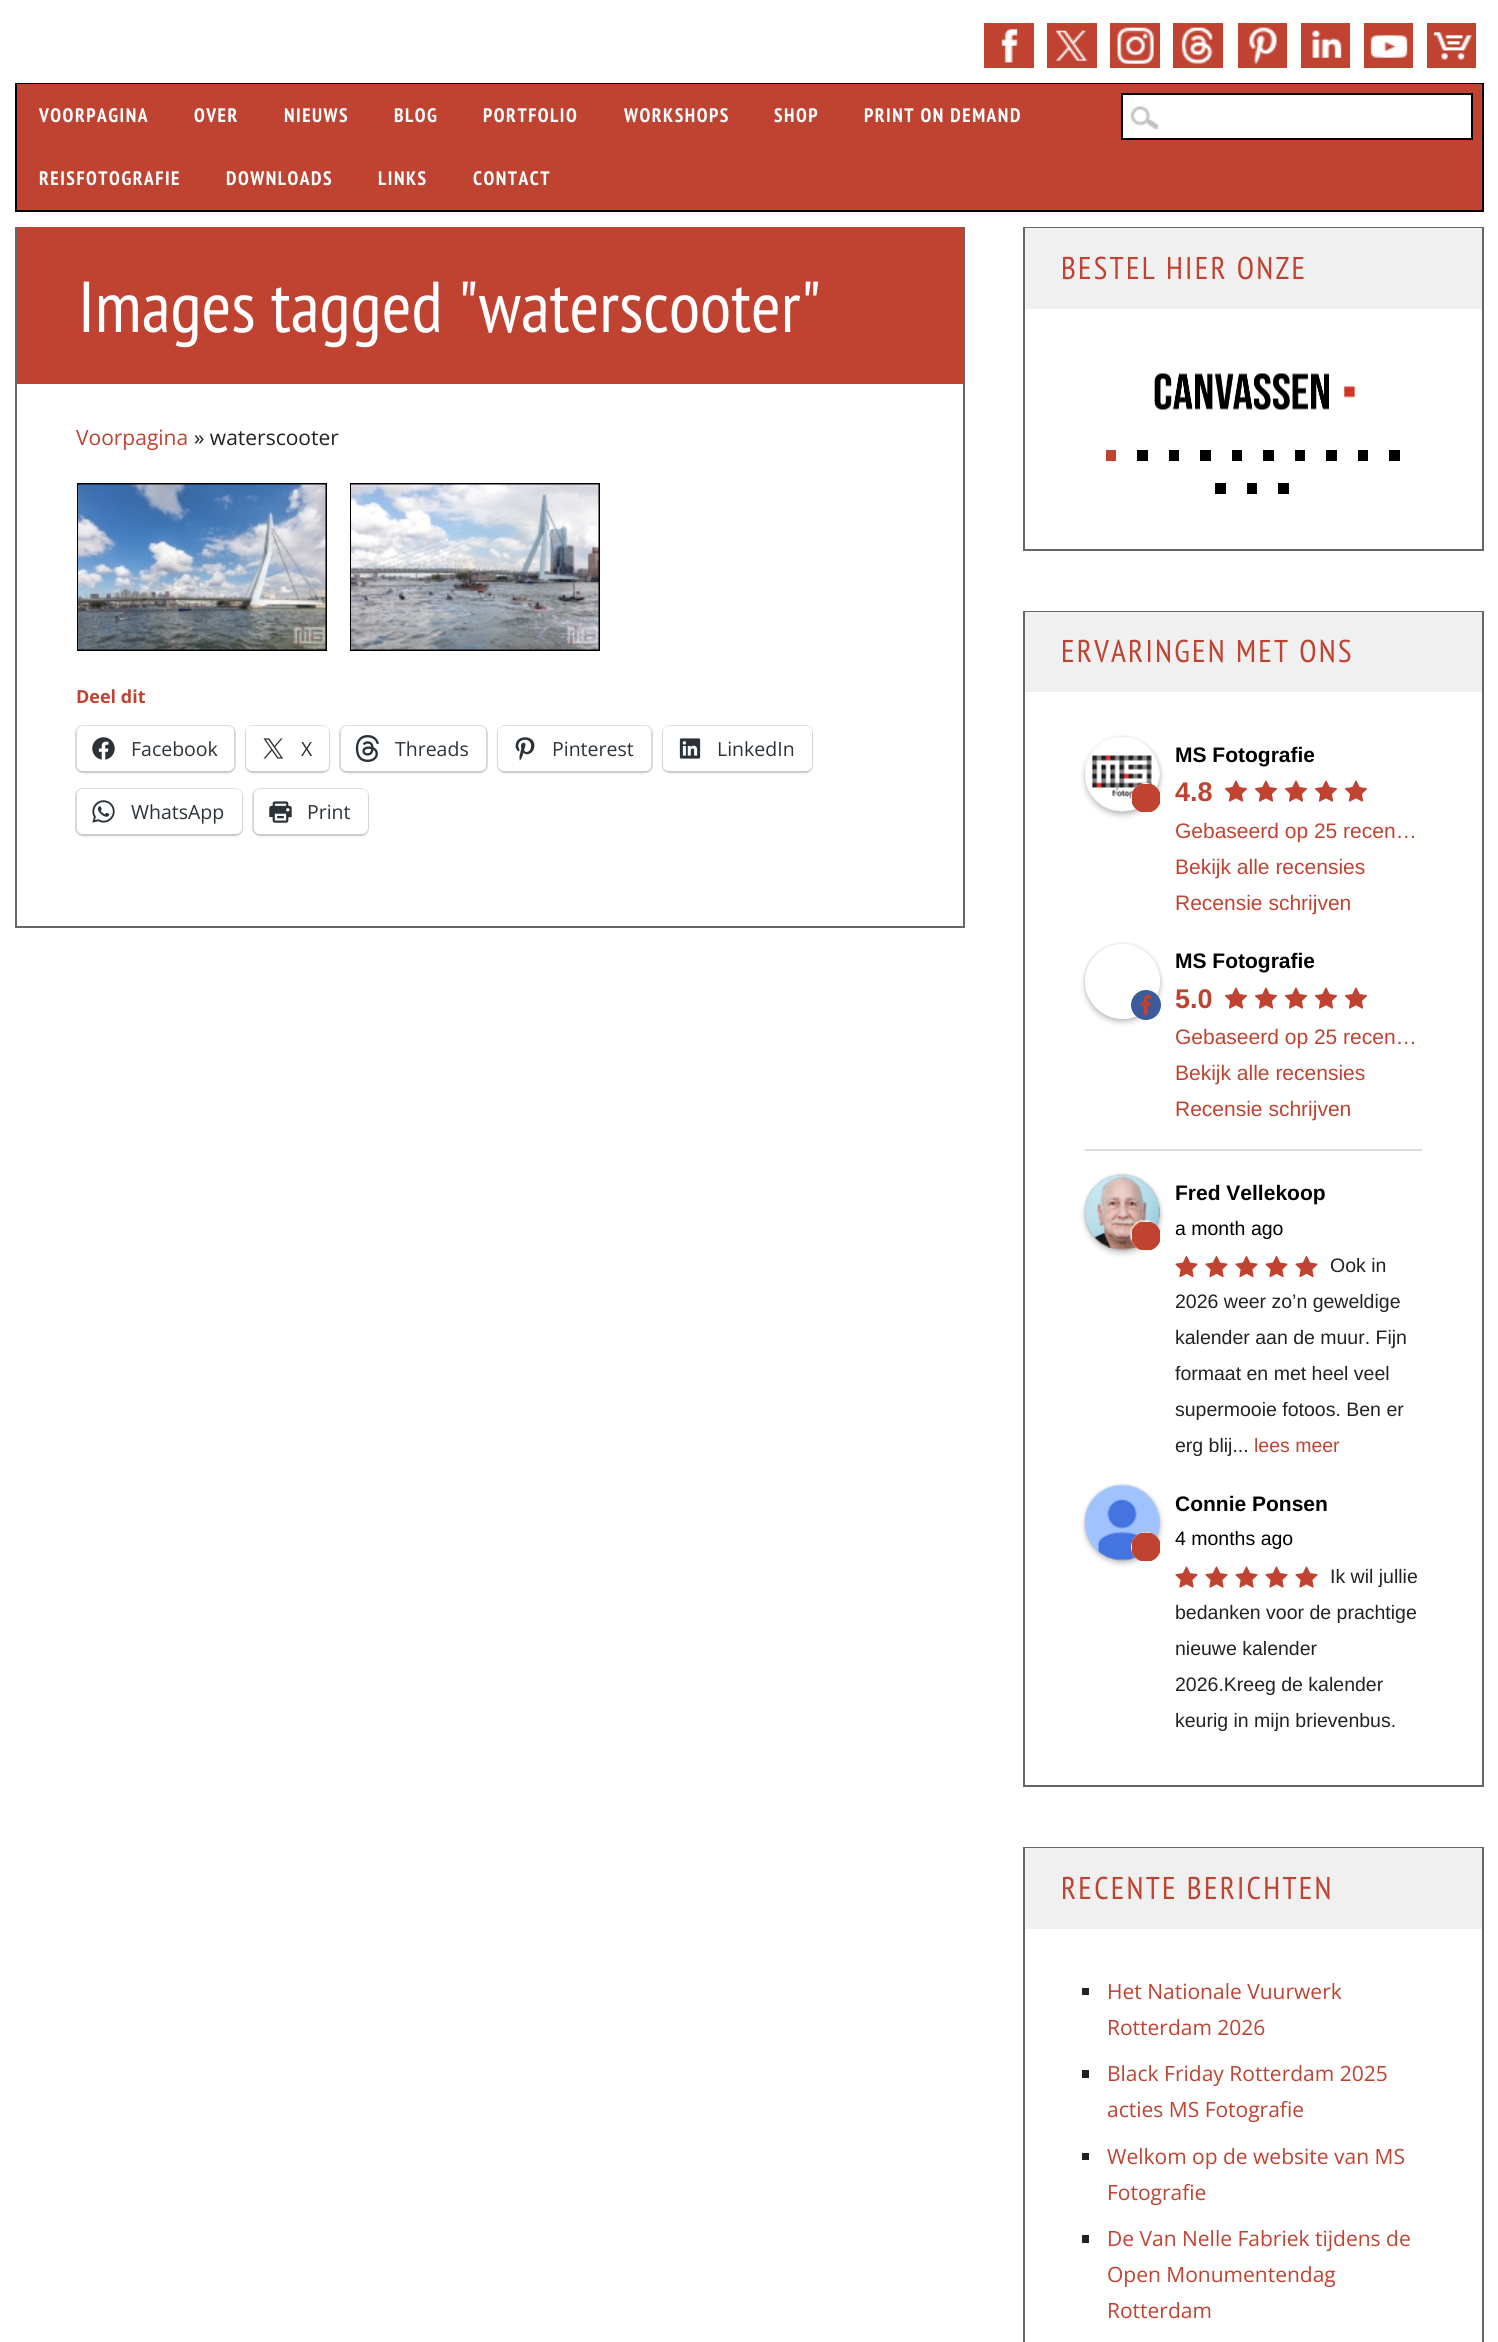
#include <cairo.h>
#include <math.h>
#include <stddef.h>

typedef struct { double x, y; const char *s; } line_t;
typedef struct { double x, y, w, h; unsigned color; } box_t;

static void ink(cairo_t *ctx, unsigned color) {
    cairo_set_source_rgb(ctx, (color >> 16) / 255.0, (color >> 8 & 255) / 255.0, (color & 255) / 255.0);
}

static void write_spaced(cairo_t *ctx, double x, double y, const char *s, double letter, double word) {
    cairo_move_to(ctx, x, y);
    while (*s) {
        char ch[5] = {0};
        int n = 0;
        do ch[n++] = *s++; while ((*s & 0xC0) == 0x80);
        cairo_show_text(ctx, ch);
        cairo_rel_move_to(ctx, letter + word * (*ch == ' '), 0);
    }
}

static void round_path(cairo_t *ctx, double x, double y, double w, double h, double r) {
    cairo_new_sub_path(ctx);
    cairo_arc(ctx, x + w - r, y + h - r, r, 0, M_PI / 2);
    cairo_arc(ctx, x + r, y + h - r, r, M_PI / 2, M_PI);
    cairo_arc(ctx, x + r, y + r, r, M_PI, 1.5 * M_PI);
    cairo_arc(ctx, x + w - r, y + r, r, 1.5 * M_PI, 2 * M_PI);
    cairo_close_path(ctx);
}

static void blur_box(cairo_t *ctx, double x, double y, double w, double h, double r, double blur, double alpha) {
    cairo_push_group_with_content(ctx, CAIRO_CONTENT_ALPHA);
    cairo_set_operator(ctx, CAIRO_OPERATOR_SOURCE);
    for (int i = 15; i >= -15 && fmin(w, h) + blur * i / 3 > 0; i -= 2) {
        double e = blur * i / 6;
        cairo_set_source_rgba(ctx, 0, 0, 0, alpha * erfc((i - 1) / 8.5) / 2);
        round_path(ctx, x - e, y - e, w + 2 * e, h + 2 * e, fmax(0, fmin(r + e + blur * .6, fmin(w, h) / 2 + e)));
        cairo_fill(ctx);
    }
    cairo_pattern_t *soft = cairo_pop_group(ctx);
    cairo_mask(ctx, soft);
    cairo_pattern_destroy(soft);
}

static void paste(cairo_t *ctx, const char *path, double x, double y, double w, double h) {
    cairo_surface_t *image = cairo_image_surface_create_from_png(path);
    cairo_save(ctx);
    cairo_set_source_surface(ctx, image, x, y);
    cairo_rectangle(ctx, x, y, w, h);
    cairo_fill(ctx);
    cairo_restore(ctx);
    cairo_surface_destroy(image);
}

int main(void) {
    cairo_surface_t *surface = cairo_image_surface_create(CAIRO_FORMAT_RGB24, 1498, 2342);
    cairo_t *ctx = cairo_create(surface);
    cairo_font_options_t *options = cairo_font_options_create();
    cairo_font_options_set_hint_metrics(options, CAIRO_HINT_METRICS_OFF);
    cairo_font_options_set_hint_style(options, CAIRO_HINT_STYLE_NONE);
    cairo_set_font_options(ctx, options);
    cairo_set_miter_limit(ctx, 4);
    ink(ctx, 0xFFFFFF);
    cairo_paint(ctx);
    ink(ctx, 0xC04231);
    cairo_rectangle(ctx, 984, 23, 50, 45);
    cairo_fill(ctx);
    paste(ctx, "media/1.png", 1001, 29, 17, 34);
    cairo_rectangle(ctx, 1047, 23, 50, 45);
    cairo_fill(ctx);
    paste(ctx, "media/2.png", 1055, 30, 33, 31);
    cairo_rectangle(ctx, 1110, 23, 50, 45);
    cairo_fill(ctx);
    paste(ctx, "media/3.png", 1117, 27, 37, 37);
    cairo_rectangle(ctx, 1173, 23, 50, 45);
    cairo_fill(ctx);
    paste(ctx, "media/4.png", 1181, 27, 32, 37);
    cairo_rectangle(ctx, 1238, 23, 49, 45);
    cairo_fill(ctx);
    paste(ctx, "media/5.png", 1249, 27, 28, 37);
    cairo_rectangle(ctx, 1301, 23, 49, 45);
    cairo_fill(ctx);
    paste(ctx, "media/6.png", 1312, 30, 30, 28);
    cairo_rectangle(ctx, 1364, 23, 49, 45);
    cairo_fill(ctx);
    paste(ctx, "media/7.png", 1370, 35, 38, 23);
    cairo_rectangle(ctx, 1427, 23, 49, 45);
    cairo_fill(ctx);
    paste(ctx, "media/8.png", 1433, 32, 39, 28);
    cairo_rectangle(ctx, 16, 84, 1467, 127);
    ink(ctx, 0x000000);
    cairo_stroke(ctx);
    ink(ctx, 0xC04231);
    cairo_rectangle(ctx, 17, 84, 1465, 126);
    cairo_fill(ctx);
    cairo_select_font_face(ctx, "PT Sans Narrow", CAIRO_FONT_SLANT_NORMAL, CAIRO_FONT_WEIGHT_BOLD);
    cairo_set_font_size(ctx, 19.5);
    ink(ctx, 0xFFFFFF);
    {
        static const line_t items[] = {
            {39, 122, "VOORPAGINA"},
            {194, 122, "OVER"},
            {284, 122, "NIEUWS"},
            {394, 122, "BLOG"},
            {483, 122, "PORTFOLIO"},
            {624, 122, "WORKSHOPS"},
            {774, 122, "SHOP"},
            {864, 122, "PRINT ON DEMAND"},
            {39, 185, "REISFOTOGRAFIE"},
            {226, 185, "DOWNLOADS"},
            {378, 185, "LINKS"},
            {473, 185, "CONTACT"},
        };
        for (size_t i = 0; i < sizeof items / sizeof *items; i++) {
            write_spaced(ctx, items[i].x, items[i].y, items[i].s, 1.5, 0);
        }
    }
    cairo_rectangle(ctx, 1123, 95, 348, 43);
    cairo_fill(ctx);
    paste(ctx, "media/9.png", 1130, 106, 29, 24);
    cairo_rectangle(ctx, 1122, 94, 350, 45);
    ink(ctx, 0x000000);
    cairo_stroke(ctx);
    {
        static const box_t items[] = {
            {963, 227, 2, 700, 0x666666},
            {15, 926, 950, 2, 0x666666},
            {15, 227, 2, 700, 0x666666},
            {17, 227, 946, 157, 0xC04231},
        };
        for (size_t i = 0; i < sizeof items / sizeof *items; i++) {
            ink(ctx, items[i].color);
            cairo_rectangle(ctx, items[i].x, items[i].y, items[i].w, items[i].h);
            cairo_fill(ctx);
        }
    }
    cairo_select_font_face(ctx, "PT Sans Narrow", CAIRO_FONT_SLANT_NORMAL, CAIRO_FONT_WEIGHT_NORMAL);
    cairo_set_font_size(ctx, 72);
    ink(ctx, 0xFFFFFF);
    cairo_move_to(ctx, 78, 332);
    cairo_show_text(ctx, "Images tagged \"waterscooter\"");
    cairo_select_font_face(ctx, "Open Sans", CAIRO_FONT_SLANT_NORMAL, CAIRO_FONT_WEIGHT_NORMAL);
    cairo_set_font_size(ctx, 21);
    ink(ctx, 0xC04231);
    cairo_move_to(ctx, 76, 445);
    cairo_show_text(ctx, "Voorpagina");
    ink(ctx, 0x222222);
    cairo_move_to(ctx, 194, 445);
    cairo_show_text(ctx, "» waterscooter");
    cairo_rectangle(ctx, 78, 484, 248, 166);
    ink(ctx, 0x000000);
    cairo_stroke(ctx);
    paste(ctx, "media/10.png", 78, 484, 248, 166);
    cairo_rectangle(ctx, 351, 484, 248, 166);
    cairo_stroke(ctx);
    paste(ctx, "media/11.png", 351, 484, 248, 166);
    cairo_select_font_face(ctx, "Open Sans", CAIRO_FONT_SLANT_NORMAL, CAIRO_FONT_WEIGHT_BOLD);
    cairo_set_font_size(ctx, 18);
    ink(ctx, 0xC04231);
    cairo_move_to(ctx, 76, 703);
    cairo_show_text(ctx, "Deel dit");
    round_path(ctx, 76, 726, 159, 46, 7);
    ink(ctx, 0xE0E0E0);
    cairo_stroke(ctx);
    ink(ctx, 0x000000);
    blur_box(ctx, 77, 728, 157, 45, 6, 1.5, 0.12);
    ink(ctx, 0xFFFFFF);
    round_path(ctx, 77, 726, 157, 45, 6);
    cairo_fill(ctx);
    paste(ctx, "media/12.png", 92, 737, 23, 23);
    cairo_select_font_face(ctx, "Open Sans", CAIRO_FONT_SLANT_NORMAL, CAIRO_FONT_WEIGHT_NORMAL);
    cairo_set_font_size(ctx, 19.5);
    ink(ctx, 0x2C3338);
    cairo_move_to(ctx, 131, 756);
    cairo_show_text(ctx, "Facebook");
    round_path(ctx, 246, 726, 83, 46, 7);
    ink(ctx, 0xE0E0E0);
    cairo_stroke(ctx);
    ink(ctx, 0x000000);
    blur_box(ctx, 246, 728, 83, 45, 6, 1.5, 0.12);
    ink(ctx, 0xFFFFFF);
    round_path(ctx, 246, 726, 83, 45, 6);
    cairo_fill(ctx);
    paste(ctx, "media/13.png", 263, 738, 21, 21);
    ink(ctx, 0x2C3338);
    cairo_move_to(ctx, 301, 756);
    cairo_show_text(ctx, "X");
    round_path(ctx, 340, 726, 147, 46, 7);
    ink(ctx, 0xE0E0E0);
    cairo_stroke(ctx);
    ink(ctx, 0x000000);
    blur_box(ctx, 341, 728, 145, 45, 6, 1.5, 0.12);
    ink(ctx, 0xFFFFFF);
    round_path(ctx, 341, 726, 145, 45, 6);
    cairo_fill(ctx);
    paste(ctx, "media/14.png", 355, 735, 24, 27);
    ink(ctx, 0x2C3338);
    cairo_move_to(ctx, 395, 756);
    cairo_show_text(ctx, "Threads");
    round_path(ctx, 498, 726, 154, 46, 7);
    ink(ctx, 0xE0E0E0);
    cairo_stroke(ctx);
    ink(ctx, 0x000000);
    blur_box(ctx, 498, 728, 153, 45, 6, 1.5, 0.12);
    ink(ctx, 0xFFFFFF);
    round_path(ctx, 498, 726, 153, 45, 6);
    cairo_fill(ctx);
    paste(ctx, "media/15.png", 515, 737, 20, 24);
    ink(ctx, 0x2C3338);
    cairo_move_to(ctx, 552, 756);
    cairo_show_text(ctx, "Pinterest");
    round_path(ctx, 663, 726, 149, 46, 7);
    ink(ctx, 0xE0E0E0);
    cairo_stroke(ctx);
    ink(ctx, 0x000000);
    blur_box(ctx, 663, 728, 149, 45, 6, 1.5, 0.12);
    ink(ctx, 0xFFFFFF);
    round_path(ctx, 663, 726, 149, 45, 6);
    cairo_fill(ctx);
    paste(ctx, "media/16.png", 679, 738, 22, 21);
    ink(ctx, 0x2C3338);
    cairo_move_to(ctx, 717, 756);
    cairo_show_text(ctx, "LinkedIn");
    round_path(ctx, 76, 789, 166, 46, 7);
    ink(ctx, 0xE0E0E0);
    cairo_stroke(ctx);
    ink(ctx, 0x000000);
    blur_box(ctx, 77, 791, 165, 45, 6, 1.5, 0.12);
    ink(ctx, 0xFFFFFF);
    round_path(ctx, 77, 789, 165, 45, 6);
    cairo_fill(ctx);
    paste(ctx, "media/17.png", 92, 800, 23, 23);
    ink(ctx, 0x2C3338);
    cairo_move_to(ctx, 131, 819);
    cairo_show_text(ctx, "WhatsApp");
    round_path(ctx, 253, 789, 115, 46, 7);
    ink(ctx, 0xE0E0E0);
    cairo_stroke(ctx);
    ink(ctx, 0x000000);
    blur_box(ctx, 254, 791, 114, 45, 6, 1.5, 0.12);
    ink(ctx, 0xFFFFFF);
    round_path(ctx, 254, 789, 114, 45, 6);
    cairo_fill(ctx);
    paste(ctx, "media/18.png", 269, 801, 23, 22);
    ink(ctx, 0x2C3338);
    cairo_move_to(ctx, 307, 819);
    cairo_show_text(ctx, "Print");
    cairo_rectangle(ctx, 1024, 228, 459, 322);
    ink(ctx, 0x666666);
    cairo_stroke(ctx);
    ink(ctx, 0xF0F0F0);
    cairo_rectangle(ctx, 1025, 228, 457, 81);
    cairo_fill(ctx);
    cairo_select_font_face(ctx, "PT Sans Narrow", CAIRO_FONT_SLANT_NORMAL, CAIRO_FONT_WEIGHT_NORMAL);
    cairo_set_font_size(ctx, 31.5);
    ink(ctx, 0xC04231);
    write_spaced(ctx, 1061, 279, "BESTEL HIER ONZE", 2.25, 0);
    paste(ctx, "media/19.png", 1154, 373, 201, 37);
    {
        static const box_t items[] = {
            {1106, 450, 10, 11, 0xC04231},
            {1137, 450, 11, 11, 0x000000},
            {1169, 450, 10, 11, 0x000000},
            {1200, 450, 11, 11, 0x000000},
            {1232, 450, 10, 11, 0x000000},
            {1263, 450, 11, 11, 0x000000},
            {1295, 450, 10, 11, 0x000000},
            {1326, 450, 11, 11, 0x000000},
            {1358, 450, 10, 11, 0x000000},
            {1389, 450, 11, 11, 0x000000},
            {1215, 483, 11, 11, 0x000000},
            {1247, 483, 10, 11, 0x000000},
            {1278, 483, 11, 11, 0x000000},
        };
        for (size_t i = 0; i < sizeof items / sizeof *items; i++) {
            ink(ctx, items[i].color);
            cairo_rectangle(ctx, items[i].x, items[i].y, items[i].w, items[i].h);
            cairo_fill(ctx);
        }
    }
    cairo_rectangle(ctx, 1024, 612, 459, 1174);
    ink(ctx, 0x666666);
    cairo_stroke(ctx);
    ink(ctx, 0xF0F0F0);
    cairo_rectangle(ctx, 1025, 612, 457, 80);
    cairo_fill(ctx);
    ink(ctx, 0xC04231);
    write_spaced(ctx, 1061, 662, "ERVARINGEN MET ONS", 2.25, 0);
    ink(ctx, 0x000000);
    blur_box(ctx, 1085, 740, 75, 75, 37.5, 3, 0.24);
    blur_box(ctx, 1085, 737, 75, 75, 37.5, 1.5, 0.12);
    paste(ctx, "media/20.png", 1085, 737, 75, 75);
    ink(ctx, 0xF5F5F5);
    cairo_arc(ctx, 1146, 798, 15, 0, 2 * M_PI);
    cairo_fill(ctx);
    paste(ctx, "media/21.png", 1132, 784, 28, 28);
    cairo_select_font_face(ctx, "Liberation Sans", CAIRO_FONT_SLANT_NORMAL, CAIRO_FONT_WEIGHT_BOLD);
    cairo_set_font_size(ctx, 21);
    ink(ctx, 0x000000);
    cairo_move_to(ctx, 1175, 762);
    cairo_show_text(ctx, "MS Fotografie");
    cairo_set_font_size(ctx, 27);
    ink(ctx, 0xC04231);
    cairo_move_to(ctx, 1175, 801);
    cairo_show_text(ctx, "4.8");
    paste(ctx, "media/22.png", 1224, 780, 24, 22);
    paste(ctx, "media/22.png", 1254, 780, 24, 22);
    paste(ctx, "media/22.png", 1284, 780, 24, 22);
    paste(ctx, "media/22.png", 1314, 780, 24, 22);
    paste(ctx, "media/22.png", 1344, 780, 24, 22);
    cairo_select_font_face(ctx, "Liberation Sans", CAIRO_FONT_SLANT_NORMAL, CAIRO_FONT_WEIGHT_NORMAL);
    cairo_set_font_size(ctx, 21);
    {
        static const line_t items[] = {
            {1175, 838, "Gebaseerd op 25 recen…"},
            {1175, 874, "Bekijk alle recensies"},
            {1175, 910, "Recensie schrijven"},
        };
        for (size_t i = 0; i < sizeof items / sizeof *items; i++) {
            cairo_move_to(ctx, items[i].x, items[i].y);
            cairo_show_text(ctx, items[i].s);
        }
    }
    cairo_save(ctx);
    cairo_set_fill_rule(ctx, CAIRO_FILL_RULE_EVEN_ODD);
    cairo_new_path(ctx);
    cairo_move_to(ctx, 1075, 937);
    cairo_line_to(ctx, 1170, 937);
    cairo_line_to(ctx, 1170, 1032);
    cairo_line_to(ctx, 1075, 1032);
    cairo_close_path(ctx);
    cairo_move_to(ctx, 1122.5, 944);
    cairo_curve_to(ctx, 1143, 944, 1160, 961, 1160, 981.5);
    cairo_curve_to(ctx, 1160, 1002, 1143, 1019, 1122.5, 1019);
    cairo_curve_to(ctx, 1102, 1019, 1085, 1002, 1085, 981.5);
    cairo_curve_to(ctx, 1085, 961, 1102, 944, 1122.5, 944);
    cairo_close_path(ctx);
    cairo_clip(ctx);
    ink(ctx, 0x000000);
    blur_box(ctx, 1085, 947, 75, 75, 37.5, 3, 0.24);
    cairo_restore(ctx);
    cairo_save(ctx);
    cairo_set_fill_rule(ctx, CAIRO_FILL_RULE_EVEN_ODD);
    cairo_new_path(ctx);
    cairo_move_to(ctx, 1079, 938);
    cairo_line_to(ctx, 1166, 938);
    cairo_line_to(ctx, 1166, 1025);
    cairo_line_to(ctx, 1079, 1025);
    cairo_close_path(ctx);
    cairo_move_to(ctx, 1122.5, 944);
    cairo_curve_to(ctx, 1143, 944, 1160, 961, 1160, 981.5);
    cairo_curve_to(ctx, 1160, 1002, 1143, 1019, 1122.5, 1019);
    cairo_curve_to(ctx, 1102, 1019, 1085, 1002, 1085, 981.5);
    cairo_curve_to(ctx, 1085, 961, 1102, 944, 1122.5, 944);
    cairo_close_path(ctx);
    cairo_clip(ctx);
    ink(ctx, 0x000000);
    blur_box(ctx, 1085, 944, 75, 75, 37.5, 1.5, 0.12);
    cairo_restore(ctx);
    ink(ctx, 0x3C5B9B);
    cairo_arc(ctx, 1146, 1005, 15, 0, 2 * M_PI);
    cairo_fill(ctx);
    paste(ctx, "media/23.png", 1140, 995, 11, 20);
    cairo_select_font_face(ctx, "Liberation Sans", CAIRO_FONT_SLANT_NORMAL, CAIRO_FONT_WEIGHT_BOLD);
    ink(ctx, 0x000000);
    cairo_move_to(ctx, 1175, 968);
    cairo_show_text(ctx, "MS Fotografie");
    cairo_set_font_size(ctx, 27);
    ink(ctx, 0xC04231);
    cairo_move_to(ctx, 1175, 1008);
    cairo_show_text(ctx, "5.0");
    paste(ctx, "media/22.png", 1224, 987, 24, 22);
    paste(ctx, "media/22.png", 1254, 987, 24, 22);
    paste(ctx, "media/22.png", 1284, 987, 24, 22);
    paste(ctx, "media/22.png", 1314, 987, 24, 22);
    paste(ctx, "media/22.png", 1344, 987, 24, 22);
    cairo_select_font_face(ctx, "Liberation Sans", CAIRO_FONT_SLANT_NORMAL, CAIRO_FONT_WEIGHT_NORMAL);
    cairo_set_font_size(ctx, 21);
    {
        static const line_t items[] = {
            {1175, 1044, "Gebaseerd op 25 recen…"},
            {1175, 1080, "Bekijk alle recensies"},
            {1175, 1116, "Recensie schrijven"},
        };
        for (size_t i = 0; i < sizeof items / sizeof *items; i++) {
            cairo_move_to(ctx, items[i].x, items[i].y);
            cairo_show_text(ctx, items[i].s);
        }
    }
    ink(ctx, 0xDDDDDD);
    cairo_rectangle(ctx, 1085, 1149, 337, 2);
    cairo_fill(ctx);
    ink(ctx, 0x000000);
    blur_box(ctx, 1085, 1178, 75, 75, 37.5, 3, 0.24);
    blur_box(ctx, 1085, 1175, 75, 75, 37.5, 1.5, 0.12);
    paste(ctx, "media/24.png", 1085, 1174, 75, 76);
    ink(ctx, 0xF5F5F5);
    cairo_arc(ctx, 1146, 1236, 15, 0, 2 * M_PI);
    cairo_fill(ctx);
    paste(ctx, "media/25.png", 1132, 1222, 28, 28);
    cairo_select_font_face(ctx, "Liberation Sans", CAIRO_FONT_SLANT_NORMAL, CAIRO_FONT_WEIGHT_BOLD);
    ink(ctx, 0x000000);
    cairo_move_to(ctx, 1175, 1200);
    cairo_show_text(ctx, "Fred Vellekoop");
    cairo_select_font_face(ctx, "Liberation Sans", CAIRO_FONT_SLANT_NORMAL, CAIRO_FONT_WEIGHT_NORMAL);
    cairo_set_font_size(ctx, 19.5);
    cairo_move_to(ctx, 1175, 1235);
    cairo_show_text(ctx, "a month ago");
    paste(ctx, "media/26.png", 1175, 1256, 23, 22);
    paste(ctx, "media/26.png", 1205, 1256, 23, 22);
    paste(ctx, "media/26.png", 1235, 1256, 23, 22);
    paste(ctx, "media/26.png", 1265, 1256, 23, 22);
    paste(ctx, "media/26.png", 1295, 1256, 23, 22);
    ink(ctx, 0x222222);
    {
        static const line_t items[] = {
            {1330, 1272, "Ook in"},
            {1175, 1308, "2026 weer zo’n geweldige"},
            {1175, 1344, "kalender aan de muur. Fijn"},
            {1175, 1380, "formaat en met heel veel"},
            {1175, 1416, "supermooie fotoos. Ben er"},
            {1175, 1452, "erg blij..."},
        };
        for (size_t i = 0; i < sizeof items / sizeof *items; i++) {
            cairo_move_to(ctx, items[i].x, items[i].y);
            cairo_show_text(ctx, items[i].s);
        }
    }
    ink(ctx, 0xC04231);
    cairo_move_to(ctx, 1254, 1452);
    cairo_show_text(ctx, "lees meer");
    ink(ctx, 0x000000);
    blur_box(ctx, 1085, 1488, 75, 75, 37.5, 3, 0.24);
    blur_box(ctx, 1085, 1485, 75, 75, 37.5, 1.5, 0.12);
    paste(ctx, "media/27.png", 1085, 1484, 75, 77);
    ink(ctx, 0xF5F5F5);
    cairo_arc(ctx, 1146, 1547, 15, 0, 2 * M_PI);
    cairo_fill(ctx);
    paste(ctx, "media/28.png", 1132, 1532, 28, 29);
    cairo_select_font_face(ctx, "Liberation Sans", CAIRO_FONT_SLANT_NORMAL, CAIRO_FONT_WEIGHT_BOLD);
    cairo_set_font_size(ctx, 21);
    ink(ctx, 0x000000);
    cairo_move_to(ctx, 1175, 1511);
    cairo_show_text(ctx, "Connie Ponsen");
    cairo_select_font_face(ctx, "Liberation Sans", CAIRO_FONT_SLANT_NORMAL, CAIRO_FONT_WEIGHT_NORMAL);
    cairo_set_font_size(ctx, 19.5);
    cairo_move_to(ctx, 1175, 1545);
    cairo_show_text(ctx, "4 months ago");
    paste(ctx, "media/29.png", 1175, 1566, 23, 22);
    paste(ctx, "media/29.png", 1205, 1566, 23, 22);
    paste(ctx, "media/29.png", 1235, 1566, 23, 22);
    paste(ctx, "media/29.png", 1265, 1566, 23, 22);
    paste(ctx, "media/29.png", 1295, 1566, 23, 22);
    ink(ctx, 0x222222);
    {
        static const line_t items[] = {
            {1330, 1583, "Ik wil jullie"},
            {1175, 1619, "bedanken voor de prachtige"},
            {1175, 1655, "nieuwe kalender"},
            {1175, 1691, "2026.Kreeg de kalender"},
            {1175, 1727, "keurig in mijn brievenbus."},
        };
        for (size_t i = 0; i < sizeof items / sizeof *items; i++) {
            cairo_move_to(ctx, items[i].x, items[i].y);
            cairo_show_text(ctx, items[i].s);
        }
    }
    cairo_rectangle(ctx, 1024, 1848, 459, 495);
    ink(ctx, 0x666666);
    cairo_stroke(ctx);
    ink(ctx, 0xF0F0F0);
    cairo_rectangle(ctx, 1025, 1848, 457, 81);
    cairo_fill(ctx);
    cairo_select_font_face(ctx, "PT Sans Narrow", CAIRO_FONT_SLANT_NORMAL, CAIRO_FONT_WEIGHT_NORMAL);
    cairo_set_font_size(ctx, 31.5);
    ink(ctx, 0xC04231);
    write_spaced(ctx, 1061, 1899, "RECENTE BERICHTEN", 2.25, 0);
    ink(ctx, 0x222222);
    cairo_rectangle(ctx, 1082, 1988, 7, 7);
    cairo_fill(ctx);
    cairo_select_font_face(ctx, "Open Sans", CAIRO_FONT_SLANT_NORMAL, CAIRO_FONT_WEIGHT_NORMAL);
    cairo_set_font_size(ctx, 21);
    ink(ctx, 0xC04231);
    cairo_move_to(ctx, 1107, 1999);
    cairo_show_text(ctx, "Het Nationale Vuurwerk");
    cairo_move_to(ctx, 1107, 2035);
    cairo_show_text(ctx, "Rotterdam 2026");
    ink(ctx, 0x222222);
    cairo_rectangle(ctx, 1082, 2070, 7, 8);
    cairo_fill(ctx);
    ink(ctx, 0xC04231);
    cairo_move_to(ctx, 1107, 2081);
    cairo_show_text(ctx, "Black Friday Rotterdam 2025");
    cairo_move_to(ctx, 1107, 2117);
    cairo_show_text(ctx, "acties MS Fotografie");
    ink(ctx, 0x222222);
    cairo_rectangle(ctx, 1082, 2153, 7, 7);
    cairo_fill(ctx);
    ink(ctx, 0xC04231);
    cairo_move_to(ctx, 1107, 2164);
    cairo_show_text(ctx, "Welkom op de website van MS");
    cairo_move_to(ctx, 1107, 2200);
    cairo_show_text(ctx, "Fotografie");
    ink(ctx, 0x222222);
    cairo_rectangle(ctx, 1082, 2235, 7, 8);
    cairo_fill(ctx);
    ink(ctx, 0xC04231);
    {
        static const line_t items[] = {
            {1107, 2246, "De Van Nelle Fabriek tijdens de"},
            {1107, 2282, "Open Monumentendag"},
            {1107, 2318, "Rotterdam"},
        };
        for (size_t i = 0; i < sizeof items / sizeof *items; i++) {
            cairo_move_to(ctx, items[i].x, items[i].y);
            cairo_show_text(ctx, items[i].s);
        }
    }
    cairo_surface_write_to_png(surface, "image.png");
    cairo_font_options_destroy(options);
    cairo_destroy(ctx);
    cairo_surface_destroy(surface);
    return 0;
}
